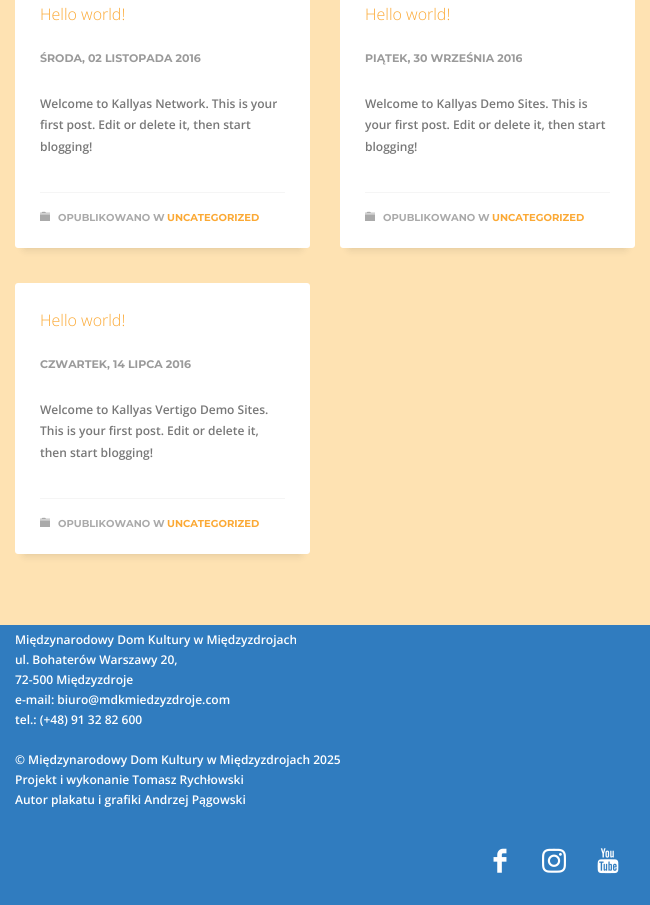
#include <cairo.h>
#include <math.h>
#include <stddef.h>

typedef struct { double x, y; const char *s; } line_t;

static void ink(cairo_t *ctx, unsigned color) {
    cairo_set_source_rgb(ctx, (color >> 16) / 255.0, (color >> 8 & 255) / 255.0, (color & 255) / 255.0);
}

static void round_path(cairo_t *ctx, double x, double y, double w, double h, double r) {
    cairo_new_sub_path(ctx);
    cairo_arc(ctx, x + w - r, y + h - r, r, 0, M_PI / 2);
    cairo_arc(ctx, x + r, y + h - r, r, M_PI / 2, M_PI);
    cairo_arc(ctx, x + r, y + r, r, M_PI, 1.5 * M_PI);
    cairo_arc(ctx, x + w - r, y + r, r, 1.5 * M_PI, 2 * M_PI);
    cairo_close_path(ctx);
}

static void blur_box(cairo_t *ctx, double x, double y, double w, double h, double r, double blur, double alpha) {
    cairo_push_group_with_content(ctx, CAIRO_CONTENT_ALPHA);
    cairo_set_operator(ctx, CAIRO_OPERATOR_SOURCE);
    for (int i = 15; i >= -15 && fmin(w, h) + blur * i / 3 > 0; i -= 2) {
        double e = blur * i / 6;
        cairo_set_source_rgba(ctx, 0, 0, 0, alpha * erfc((i - 1) / 8.5) / 2);
        round_path(ctx, x - e, y - e, w + 2 * e, h + 2 * e, fmax(0, fmin(r + e + blur * .6, fmin(w, h) / 2 + e)));
        cairo_fill(ctx);
    }
    cairo_pattern_t *soft = cairo_pop_group(ctx);
    cairo_mask(ctx, soft);
    cairo_pattern_destroy(soft);
}

static void paste(cairo_t *ctx, const char *path, double x, double y, double w, double h) {
    cairo_surface_t *image = cairo_image_surface_create_from_png(path);
    cairo_save(ctx);
    cairo_set_source_surface(ctx, image, x, y);
    cairo_rectangle(ctx, x, y, w, h);
    cairo_fill(ctx);
    cairo_restore(ctx);
    cairo_surface_destroy(image);
}

int main(void) {
    cairo_surface_t *surface = cairo_image_surface_create(CAIRO_FORMAT_RGB24, 650, 905);
    cairo_t *ctx = cairo_create(surface);
    cairo_font_options_t *options = cairo_font_options_create();
    cairo_font_options_set_hint_metrics(options, CAIRO_HINT_METRICS_OFF);
    cairo_font_options_set_hint_style(options, CAIRO_HINT_STYLE_NONE);
    cairo_set_font_options(ctx, options);
    cairo_set_miter_limit(ctx, 4);
    ink(ctx, 0xFEE2B2);
    cairo_paint(ctx);
    ink(ctx, 0x000000);
    blur_box(ctx, 25, -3, 275, 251, 0, 5, 0.15);
    ink(ctx, 0xFFFFFF);
    round_path(ctx, 15, -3, 295, 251, 3);
    cairo_fill(ctx);
    cairo_select_font_face(ctx, "Open Sans Light", CAIRO_FONT_SLANT_NORMAL, CAIRO_FONT_WEIGHT_NORMAL);
    cairo_set_font_size(ctx, 16);
    ink(ctx, 0xFBA935);
    cairo_move_to(ctx, 40, 20);
    cairo_show_text(ctx, "Hello world!");
    cairo_select_font_face(ctx, "Montserrat", CAIRO_FONT_SLANT_NORMAL, CAIRO_FONT_WEIGHT_BOLD);
    cairo_set_font_size(ctx, 11);
    ink(ctx, 0x9A9A9A);
    cairo_move_to(ctx, 40, 62);
    cairo_show_text(ctx, "ŚRODA, 02 LISTOPADA 2016");
    ink(ctx, 0xF5F5F5);
    cairo_rectangle(ctx, 40, 192, 245, 1);
    cairo_fill(ctx);
    cairo_select_font_face(ctx, "Open Sans SemiBold", CAIRO_FONT_SLANT_NORMAL, CAIRO_FONT_WEIGHT_NORMAL);
    cairo_set_font_size(ctx, 12);
    ink(ctx, 0x787878);
    {
        static const line_t items[] = {
            {40, 108, "Welcome to Kallyas Network. This is your"},
            {40, 129, "first post. Edit or delete it, then start"},
            {40, 151, "blogging!"},
        };
        for (size_t i = 0; i < sizeof items / sizeof *items; i++) {
            cairo_move_to(ctx, items[i].x, items[i].y);
            cairo_show_text(ctx, items[i].s);
        }
    }
    paste(ctx, "media/1.png", 40, 211, 10, 10);
    cairo_select_font_face(ctx, "Montserrat", CAIRO_FONT_SLANT_NORMAL, CAIRO_FONT_WEIGHT_BOLD);
    cairo_set_font_size(ctx, 10);
    ink(ctx, 0xAAAAAA);
    cairo_move_to(ctx, 58, 221);
    cairo_show_text(ctx, "OPUBLIKOWANO W");
    ink(ctx, 0xFBA935);
    cairo_move_to(ctx, 167, 221);
    cairo_show_text(ctx, "UNCATEGORIZED");
    ink(ctx, 0x000000);
    blur_box(ctx, 350, -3, 275, 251, 0, 5, 0.15);
    ink(ctx, 0xFFFFFF);
    round_path(ctx, 340, -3, 295, 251, 3);
    cairo_fill(ctx);
    cairo_select_font_face(ctx, "Open Sans Light", CAIRO_FONT_SLANT_NORMAL, CAIRO_FONT_WEIGHT_NORMAL);
    cairo_set_font_size(ctx, 16);
    ink(ctx, 0xFBA935);
    cairo_move_to(ctx, 365, 20);
    cairo_show_text(ctx, "Hello world!");
    cairo_select_font_face(ctx, "Montserrat", CAIRO_FONT_SLANT_NORMAL, CAIRO_FONT_WEIGHT_BOLD);
    cairo_set_font_size(ctx, 11);
    ink(ctx, 0x9A9A9A);
    cairo_move_to(ctx, 365, 62);
    cairo_show_text(ctx, "PIĄTEK, 30 WRZEŚNIA 2016");
    ink(ctx, 0xF5F5F5);
    cairo_rectangle(ctx, 365, 192, 245, 1);
    cairo_fill(ctx);
    cairo_select_font_face(ctx, "Open Sans SemiBold", CAIRO_FONT_SLANT_NORMAL, CAIRO_FONT_WEIGHT_NORMAL);
    cairo_set_font_size(ctx, 12);
    ink(ctx, 0x787878);
    {
        static const line_t items[] = {
            {365, 108, "Welcome to Kallyas Demo Sites. This is"},
            {365, 129, "your first post. Edit or delete it, then start"},
            {365, 151, "blogging!"},
        };
        for (size_t i = 0; i < sizeof items / sizeof *items; i++) {
            cairo_move_to(ctx, items[i].x, items[i].y);
            cairo_show_text(ctx, items[i].s);
        }
    }
    paste(ctx, "media/1.png", 365, 211, 10, 10);
    cairo_select_font_face(ctx, "Montserrat", CAIRO_FONT_SLANT_NORMAL, CAIRO_FONT_WEIGHT_BOLD);
    cairo_set_font_size(ctx, 10);
    ink(ctx, 0xAAAAAA);
    cairo_move_to(ctx, 383, 221);
    cairo_show_text(ctx, "OPUBLIKOWANO W");
    ink(ctx, 0xFBA935);
    cairo_move_to(ctx, 492, 221);
    cairo_show_text(ctx, "UNCATEGORIZED");
    ink(ctx, 0x000000);
    blur_box(ctx, 25, 303, 275, 251, 0, 5, 0.15);
    ink(ctx, 0xFFFFFF);
    round_path(ctx, 15, 283, 295, 271, 3);
    cairo_fill(ctx);
    cairo_select_font_face(ctx, "Open Sans Light", CAIRO_FONT_SLANT_NORMAL, CAIRO_FONT_WEIGHT_NORMAL);
    cairo_set_font_size(ctx, 16);
    ink(ctx, 0xFBA935);
    cairo_move_to(ctx, 40, 326);
    cairo_show_text(ctx, "Hello world!");
    cairo_select_font_face(ctx, "Montserrat", CAIRO_FONT_SLANT_NORMAL, CAIRO_FONT_WEIGHT_BOLD);
    cairo_set_font_size(ctx, 11);
    ink(ctx, 0x9A9A9A);
    cairo_move_to(ctx, 40, 368);
    cairo_show_text(ctx, "CZWARTEK, 14 LIPCA 2016");
    ink(ctx, 0xF5F5F5);
    cairo_rectangle(ctx, 40, 498, 245, 1);
    cairo_fill(ctx);
    cairo_select_font_face(ctx, "Open Sans SemiBold", CAIRO_FONT_SLANT_NORMAL, CAIRO_FONT_WEIGHT_NORMAL);
    cairo_set_font_size(ctx, 12);
    ink(ctx, 0x787878);
    {
        static const line_t items[] = {
            {40, 414, "Welcome to Kallyas Vertigo Demo Sites."},
            {40, 435, "This is your first post. Edit or delete it,"},
            {40, 457, "then start blogging!"},
        };
        for (size_t i = 0; i < sizeof items / sizeof *items; i++) {
            cairo_move_to(ctx, items[i].x, items[i].y);
            cairo_show_text(ctx, items[i].s);
        }
    }
    paste(ctx, "media/1.png", 40, 517, 10, 10);
    cairo_select_font_face(ctx, "Montserrat", CAIRO_FONT_SLANT_NORMAL, CAIRO_FONT_WEIGHT_BOLD);
    cairo_set_font_size(ctx, 10);
    ink(ctx, 0xAAAAAA);
    cairo_move_to(ctx, 58, 527);
    cairo_show_text(ctx, "OPUBLIKOWANO W");
    ink(ctx, 0xFBA935);
    cairo_move_to(ctx, 167, 527);
    cairo_show_text(ctx, "UNCATEGORIZED");
    ink(ctx, 0x307CBF);
    cairo_rectangle(ctx, 0, 625, 650, 280);
    cairo_fill(ctx);
    cairo_select_font_face(ctx, "Open Sans SemiBold", CAIRO_FONT_SLANT_NORMAL, CAIRO_FONT_WEIGHT_NORMAL);
    cairo_set_font_size(ctx, 12);
    ink(ctx, 0xFFFFFF);
    {
        static const line_t items[] = {
            {15, 644, "Międzynarodowy Dom Kultury w Międzyzdrojach"},
            {15, 664, "ul. Bohaterów Warszawy 20,"},
            {15, 684, "72-500 Międzyzdroje"},
            {15, 704, "e-mail: biuro@mdkmiedzyzdroje.com"},
            {15, 724, "tel.: (+48) 91 32 82 600"},
            {15, 764, "© Międzynarodowy Dom Kultury w Międzyzdrojach 2025"},
            {15, 784, "Projekt i wykonanie Tomasz Rychłowski"},
            {15, 804, "Autor plakatu i grafiki Andrzej Pągowski"},
        };
        for (size_t i = 0; i < sizeof items / sizeof *items; i++) {
            cairo_move_to(ctx, items[i].x, items[i].y);
            cairo_show_text(ctx, items[i].s);
        }
    }
    paste(ctx, "media/2.png", 493, 848, 14, 25);
    paste(ctx, "media/3.png", 542, 848, 24, 25);
    paste(ctx, "media/4.png", 597, 848, 22, 26);
    cairo_surface_write_to_png(surface, "image.png");
    cairo_font_options_destroy(options);
    cairo_destroy(ctx);
    cairo_surface_destroy(surface);
    return 0;
}
